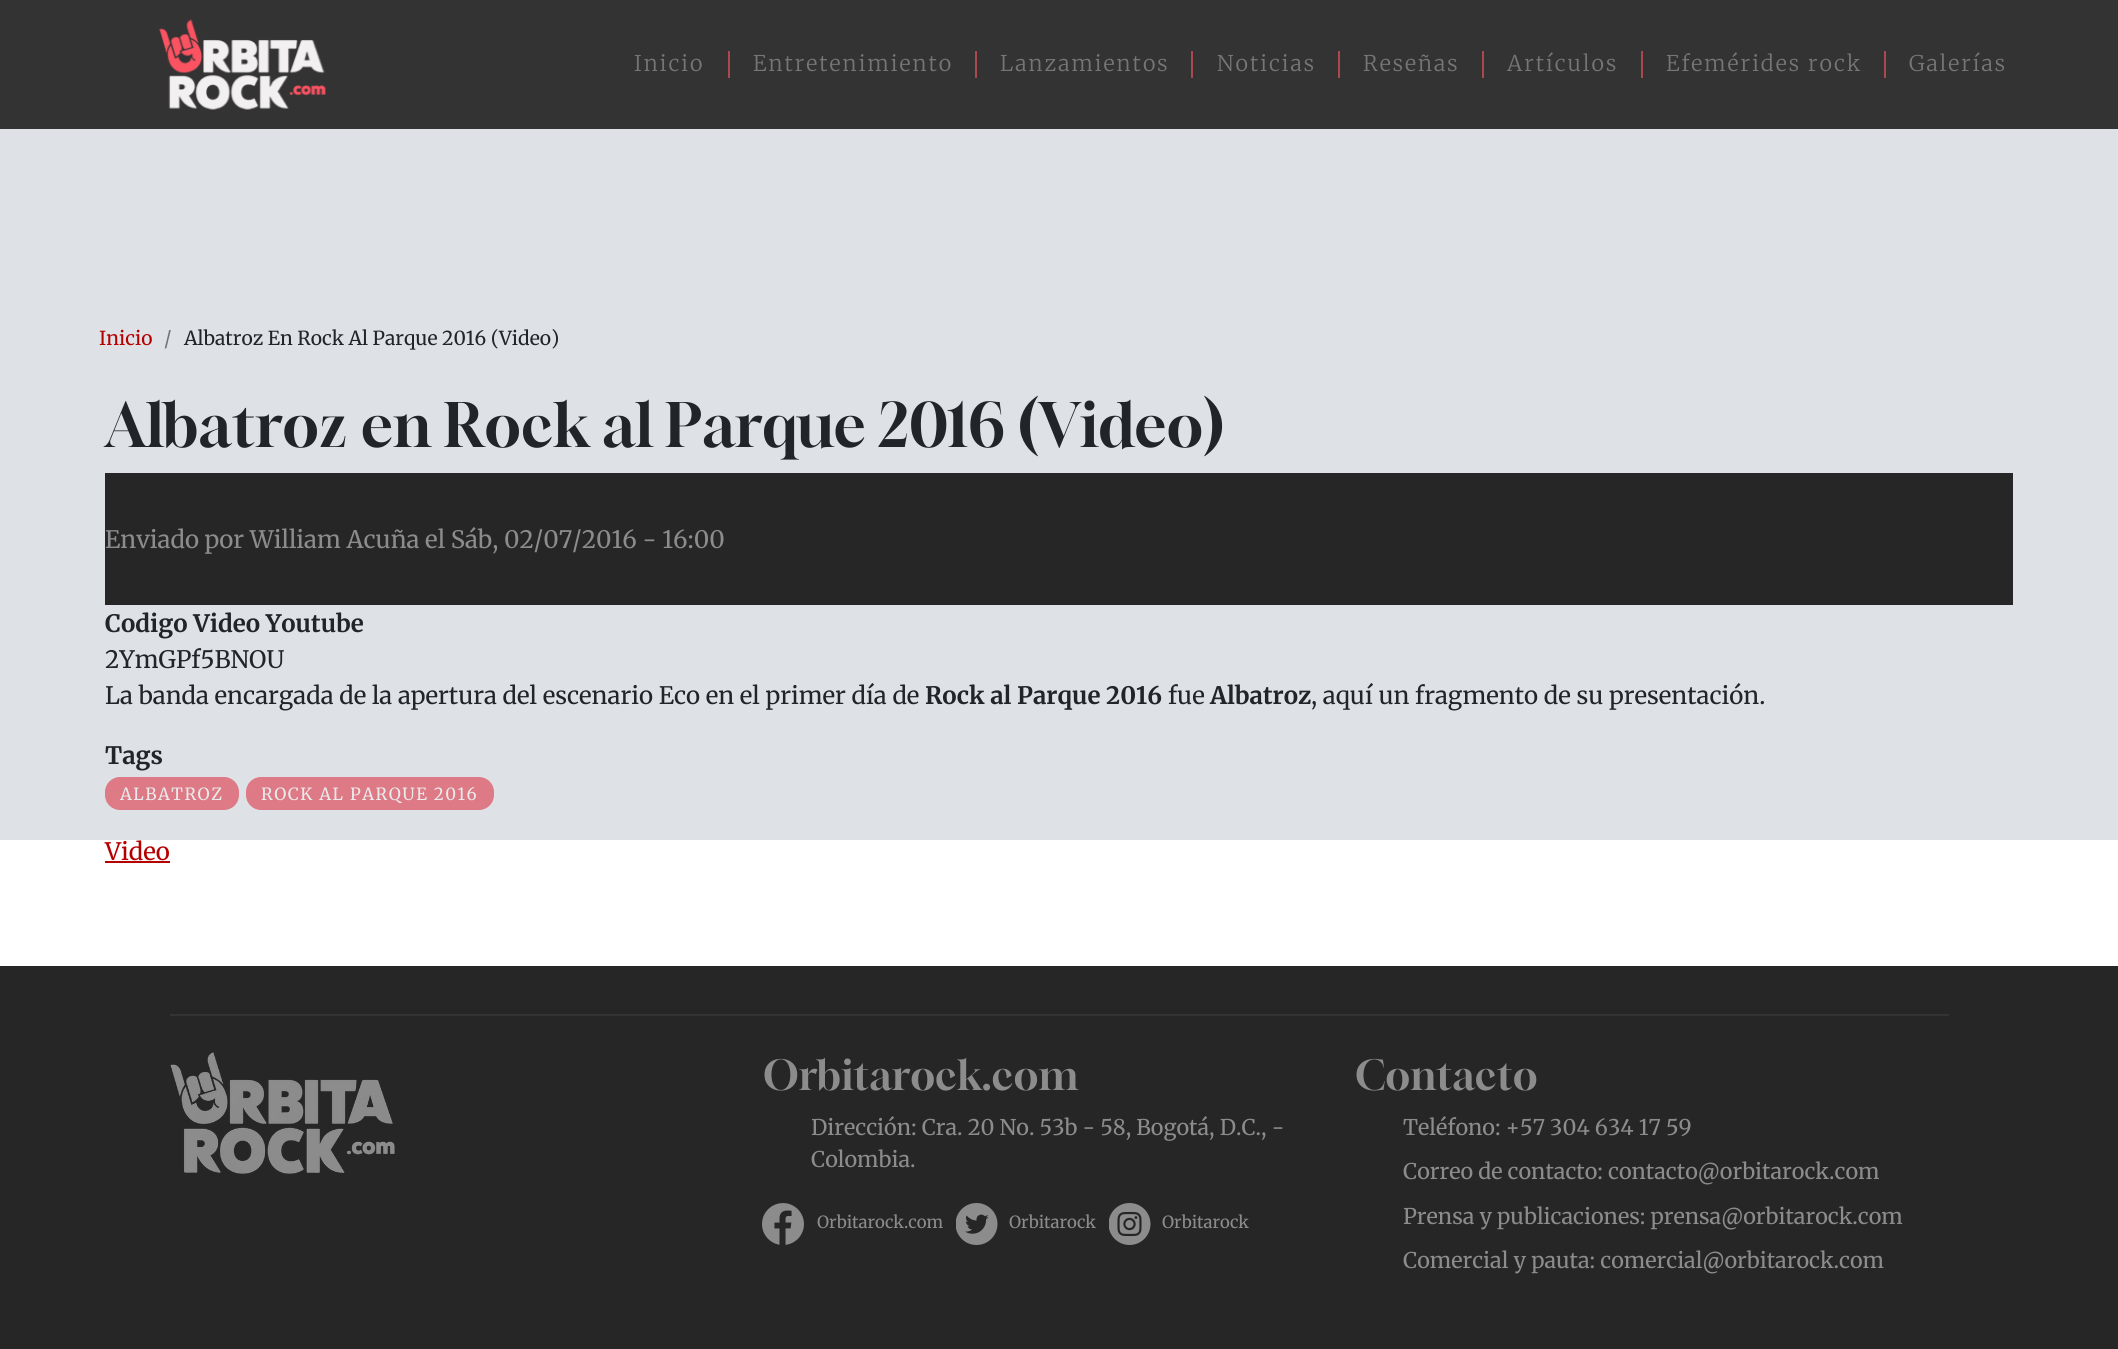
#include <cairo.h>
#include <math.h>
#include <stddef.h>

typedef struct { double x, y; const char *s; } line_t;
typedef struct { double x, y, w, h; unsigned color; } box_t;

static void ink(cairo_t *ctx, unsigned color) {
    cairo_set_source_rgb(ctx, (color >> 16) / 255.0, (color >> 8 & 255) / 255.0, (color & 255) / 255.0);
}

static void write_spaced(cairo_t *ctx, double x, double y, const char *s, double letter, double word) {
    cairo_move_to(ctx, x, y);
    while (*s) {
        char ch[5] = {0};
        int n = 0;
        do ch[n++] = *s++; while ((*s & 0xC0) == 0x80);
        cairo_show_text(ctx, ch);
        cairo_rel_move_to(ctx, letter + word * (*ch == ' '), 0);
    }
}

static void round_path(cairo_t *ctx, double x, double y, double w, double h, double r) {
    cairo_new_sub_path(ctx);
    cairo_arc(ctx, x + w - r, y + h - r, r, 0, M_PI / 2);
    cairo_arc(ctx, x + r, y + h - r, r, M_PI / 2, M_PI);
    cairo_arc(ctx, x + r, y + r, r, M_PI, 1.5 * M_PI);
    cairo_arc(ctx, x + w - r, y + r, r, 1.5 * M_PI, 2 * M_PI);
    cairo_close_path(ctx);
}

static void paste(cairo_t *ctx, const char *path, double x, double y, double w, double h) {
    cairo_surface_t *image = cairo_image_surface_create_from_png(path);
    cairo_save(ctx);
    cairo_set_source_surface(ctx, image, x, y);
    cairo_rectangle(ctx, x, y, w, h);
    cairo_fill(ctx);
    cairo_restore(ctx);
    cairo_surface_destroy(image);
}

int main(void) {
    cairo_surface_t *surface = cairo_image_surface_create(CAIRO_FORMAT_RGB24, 2118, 1349);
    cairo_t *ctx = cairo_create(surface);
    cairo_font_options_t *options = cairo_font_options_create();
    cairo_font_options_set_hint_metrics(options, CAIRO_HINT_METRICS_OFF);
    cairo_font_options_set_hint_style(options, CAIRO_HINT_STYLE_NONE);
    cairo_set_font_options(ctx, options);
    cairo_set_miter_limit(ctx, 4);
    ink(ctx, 0xFFFFFF);
    cairo_paint(ctx);
    ink(ctx, 0x333333);
    cairo_rectangle(ctx, 0, 0, 2118, 129);
    cairo_fill(ctx);
    paste(ctx, "media/1.png", 159, 19, 167, 91);
    cairo_select_font_face(ctx, "Merriweather Light", CAIRO_FONT_SLANT_NORMAL, CAIRO_FONT_WEIGHT_NORMAL);
    cairo_set_font_size(ctx, 21.6);
    ink(ctx, 0x767676);
    write_spaced(ctx, 634, 71, "Inicio", 2, 0);
    ink(ctx, 0xAC464F);
    cairo_rectangle(ctx, 728, 51, 2, 27);
    cairo_fill(ctx);
    ink(ctx, 0x767676);
    write_spaced(ctx, 753, 71, "Entretenimiento", 2, 0);
    ink(ctx, 0xAC464F);
    cairo_rectangle(ctx, 975, 51, 2, 27);
    cairo_fill(ctx);
    ink(ctx, 0x767676);
    write_spaced(ctx, 1000, 71, "Lanzamientos", 2, 0);
    ink(ctx, 0xAC464F);
    cairo_rectangle(ctx, 1191, 51, 2, 27);
    cairo_fill(ctx);
    ink(ctx, 0x767676);
    write_spaced(ctx, 1217, 71, "Noticias", 2, 0);
    ink(ctx, 0xAC464F);
    cairo_rectangle(ctx, 1338, 51, 2, 27);
    cairo_fill(ctx);
    ink(ctx, 0x767676);
    write_spaced(ctx, 1363, 71, "Reseñas", 2, 0);
    ink(ctx, 0xAC464F);
    cairo_rectangle(ctx, 1482, 51, 2, 27);
    cairo_fill(ctx);
    ink(ctx, 0x767676);
    write_spaced(ctx, 1507, 71, "Artículos", 2, 0);
    ink(ctx, 0xAC464F);
    cairo_rectangle(ctx, 1641, 51, 2, 27);
    cairo_fill(ctx);
    ink(ctx, 0x767676);
    write_spaced(ctx, 1666, 71, "Efemérides rock", 2, 0);
    ink(ctx, 0xAC464F);
    cairo_rectangle(ctx, 1884, 51, 2, 27);
    cairo_fill(ctx);
    ink(ctx, 0x767676);
    write_spaced(ctx, 1909, 71, "Galerías", 2, 0);
    ink(ctx, 0xDEE2E6);
    cairo_rectangle(ctx, 0, 129, 2118, 711);
    cairo_fill(ctx);
    cairo_select_font_face(ctx, "Merriweather", CAIRO_FONT_SLANT_NORMAL, CAIRO_FONT_WEIGHT_NORMAL);
    cairo_set_font_size(ctx, 19.25);
    ink(ctx, 0xB50000);
    cairo_move_to(ctx, 99, 345);
    cairo_show_text(ctx, "Inicio");
    ink(ctx, 0x6C757D);
    cairo_move_to(ctx, 164, 345);
    cairo_show_text(ctx, "/");
    ink(ctx, 0x212529);
    cairo_move_to(ctx, 184, 345);
    cairo_show_text(ctx, "Albatroz En Rock Al Parque 2016 (Video)");
    cairo_select_font_face(ctx, "Gloock", CAIRO_FONT_SLANT_NORMAL, CAIRO_FONT_WEIGHT_NORMAL);
    cairo_set_font_size(ctx, 60);
    cairo_move_to(ctx, 105, 447);
    cairo_show_text(ctx, "Albatroz en Rock al Parque 2016 (Video)");
    ink(ctx, 0x262626);
    cairo_rectangle(ctx, 105, 473, 1908, 132);
    cairo_fill(ctx);
    cairo_select_font_face(ctx, "Merriweather", CAIRO_FONT_SLANT_NORMAL, CAIRO_FONT_WEIGHT_NORMAL);
    cairo_set_font_size(ctx, 24);
    ink(ctx, 0x8D8C8C);
    cairo_move_to(ctx, 105, 548);
    cairo_show_text(ctx, "Enviado por William Acuña el Sáb, 02/07/2016 - 16:00");
    cairo_select_font_face(ctx, "Merriweather", CAIRO_FONT_SLANT_NORMAL, CAIRO_FONT_WEIGHT_BOLD);
    ink(ctx, 0x212529);
    cairo_move_to(ctx, 105, 632);
    cairo_show_text(ctx, "Codigo Video Youtube");
    cairo_select_font_face(ctx, "Merriweather", CAIRO_FONT_SLANT_NORMAL, CAIRO_FONT_WEIGHT_NORMAL);
    cairo_move_to(ctx, 105, 668);
    cairo_show_text(ctx, "2YmGPf5BNOU");
    cairo_move_to(ctx, 105, 704);
    cairo_show_text(ctx, "La banda encargada de la apertura del escenario Eco en el primer día de");
    cairo_select_font_face(ctx, "Merriweather", CAIRO_FONT_SLANT_NORMAL, CAIRO_FONT_WEIGHT_BOLD);
    cairo_move_to(ctx, 925, 704);
    cairo_show_text(ctx, "Rock al Parque 2016");
    cairo_select_font_face(ctx, "Merriweather", CAIRO_FONT_SLANT_NORMAL, CAIRO_FONT_WEIGHT_NORMAL);
    cairo_move_to(ctx, 1168, 704);
    cairo_show_text(ctx, "fue");
    cairo_select_font_face(ctx, "Merriweather", CAIRO_FONT_SLANT_NORMAL, CAIRO_FONT_WEIGHT_BOLD);
    cairo_move_to(ctx, 1210, 704);
    cairo_show_text(ctx, "Albatroz");
    cairo_select_font_face(ctx, "Merriweather", CAIRO_FONT_SLANT_NORMAL, CAIRO_FONT_WEIGHT_NORMAL);
    cairo_move_to(ctx, 1311, 704);
    cairo_show_text(ctx, ", aquí un fragmento de su presentación.");
    cairo_select_font_face(ctx, "Merriweather", CAIRO_FONT_SLANT_NORMAL, CAIRO_FONT_WEIGHT_BOLD);
    cairo_move_to(ctx, 105, 764);
    cairo_show_text(ctx, "Tags");
    ink(ctx, 0xDD7A85);
    round_path(ctx, 105, 777, 134, 33, 15);
    cairo_fill(ctx);
    cairo_select_font_face(ctx, "Merriweather", CAIRO_FONT_SLANT_NORMAL, CAIRO_FONT_WEIGHT_NORMAL);
    cairo_set_font_size(ctx, 16.75);
    ink(ctx, 0xEAEAEC);
    write_spaced(ctx, 120, 800, "ALBATROZ", 1.5, 0);
    ink(ctx, 0xDD7A85);
    round_path(ctx, 246, 777, 248, 33, 15);
    cairo_fill(ctx);
    ink(ctx, 0xEAEAEC);
    write_spaced(ctx, 261, 800, "ROCK AL PARQUE 2016", 1.5, 0);
    cairo_set_font_size(ctx, 24);
    ink(ctx, 0xB50000);
    cairo_move_to(ctx, 105, 860);
    cairo_show_text(ctx, "Video");
    {
        static const box_t items[] = {
            {105, 861, 65, 2, 0xB50000},
            {0, 966, 2118, 383, 0x262626},
            {170, 1014, 1779, 2, 0x333333},
        };
        for (size_t i = 0; i < sizeof items / sizeof *items; i++) {
            ink(ctx, items[i].color);
            cairo_rectangle(ctx, items[i].x, items[i].y, items[i].w, items[i].h);
            cairo_fill(ctx);
        }
    }
    paste(ctx, "media/2.png", 170, 1052, 225, 122);
    cairo_select_font_face(ctx, "Gloock", CAIRO_FONT_SLANT_NORMAL, CAIRO_FONT_WEIGHT_NORMAL);
    cairo_set_font_size(ctx, 40.75);
    ink(ctx, 0x8D8C8C);
    cairo_move_to(ctx, 763, 1090);
    cairo_show_text(ctx, "Orbitarock.com");
    cairo_select_font_face(ctx, "Merriweather", CAIRO_FONT_SLANT_NORMAL, CAIRO_FONT_WEIGHT_NORMAL);
    cairo_set_font_size(ctx, 21.6);
    cairo_move_to(ctx, 811, 1135);
    cairo_show_text(ctx, "Dirección: Cra. 20 No. 53b - 58, Bogotá, D.C., -");
    cairo_move_to(ctx, 811, 1167);
    cairo_show_text(ctx, "Colombia.");
    paste(ctx, "media/3.png", 762, 1203, 42, 42);
    cairo_set_font_size(ctx, 16.75);
    cairo_move_to(ctx, 817, 1228);
    cairo_show_text(ctx, "Orbitarock.com");
    paste(ctx, "media/4.png", 956, 1203, 42, 42);
    cairo_move_to(ctx, 1009, 1228);
    cairo_show_text(ctx, "Orbitarock");
    paste(ctx, "media/5.png", 1109, 1203, 42, 42);
    cairo_move_to(ctx, 1162, 1228);
    cairo_show_text(ctx, "Orbitarock");
    cairo_select_font_face(ctx, "Gloock", CAIRO_FONT_SLANT_NORMAL, CAIRO_FONT_WEIGHT_NORMAL);
    cairo_set_font_size(ctx, 40.75);
    cairo_move_to(ctx, 1355, 1090);
    cairo_show_text(ctx, "Contacto");
    cairo_select_font_face(ctx, "Merriweather", CAIRO_FONT_SLANT_NORMAL, CAIRO_FONT_WEIGHT_NORMAL);
    cairo_set_font_size(ctx, 21.6);
    {
        static const line_t items[] = {
            {1403, 1135, "Teléfono: +57 304 634 17 59"},
            {1403, 1179, "Correo de contacto: contacto@orbitarock.com"},
            {1403, 1224, "Prensa y publicaciones: prensa@orbitarock.com"},
            {1403, 1268, "Comercial y pauta: comercial@orbitarock.com"},
        };
        for (size_t i = 0; i < sizeof items / sizeof *items; i++) {
            cairo_move_to(ctx, items[i].x, items[i].y);
            cairo_show_text(ctx, items[i].s);
        }
    }
    cairo_surface_write_to_png(surface, "image.png");
    cairo_font_options_destroy(options);
    cairo_destroy(ctx);
    cairo_surface_destroy(surface);
    return 0;
}
